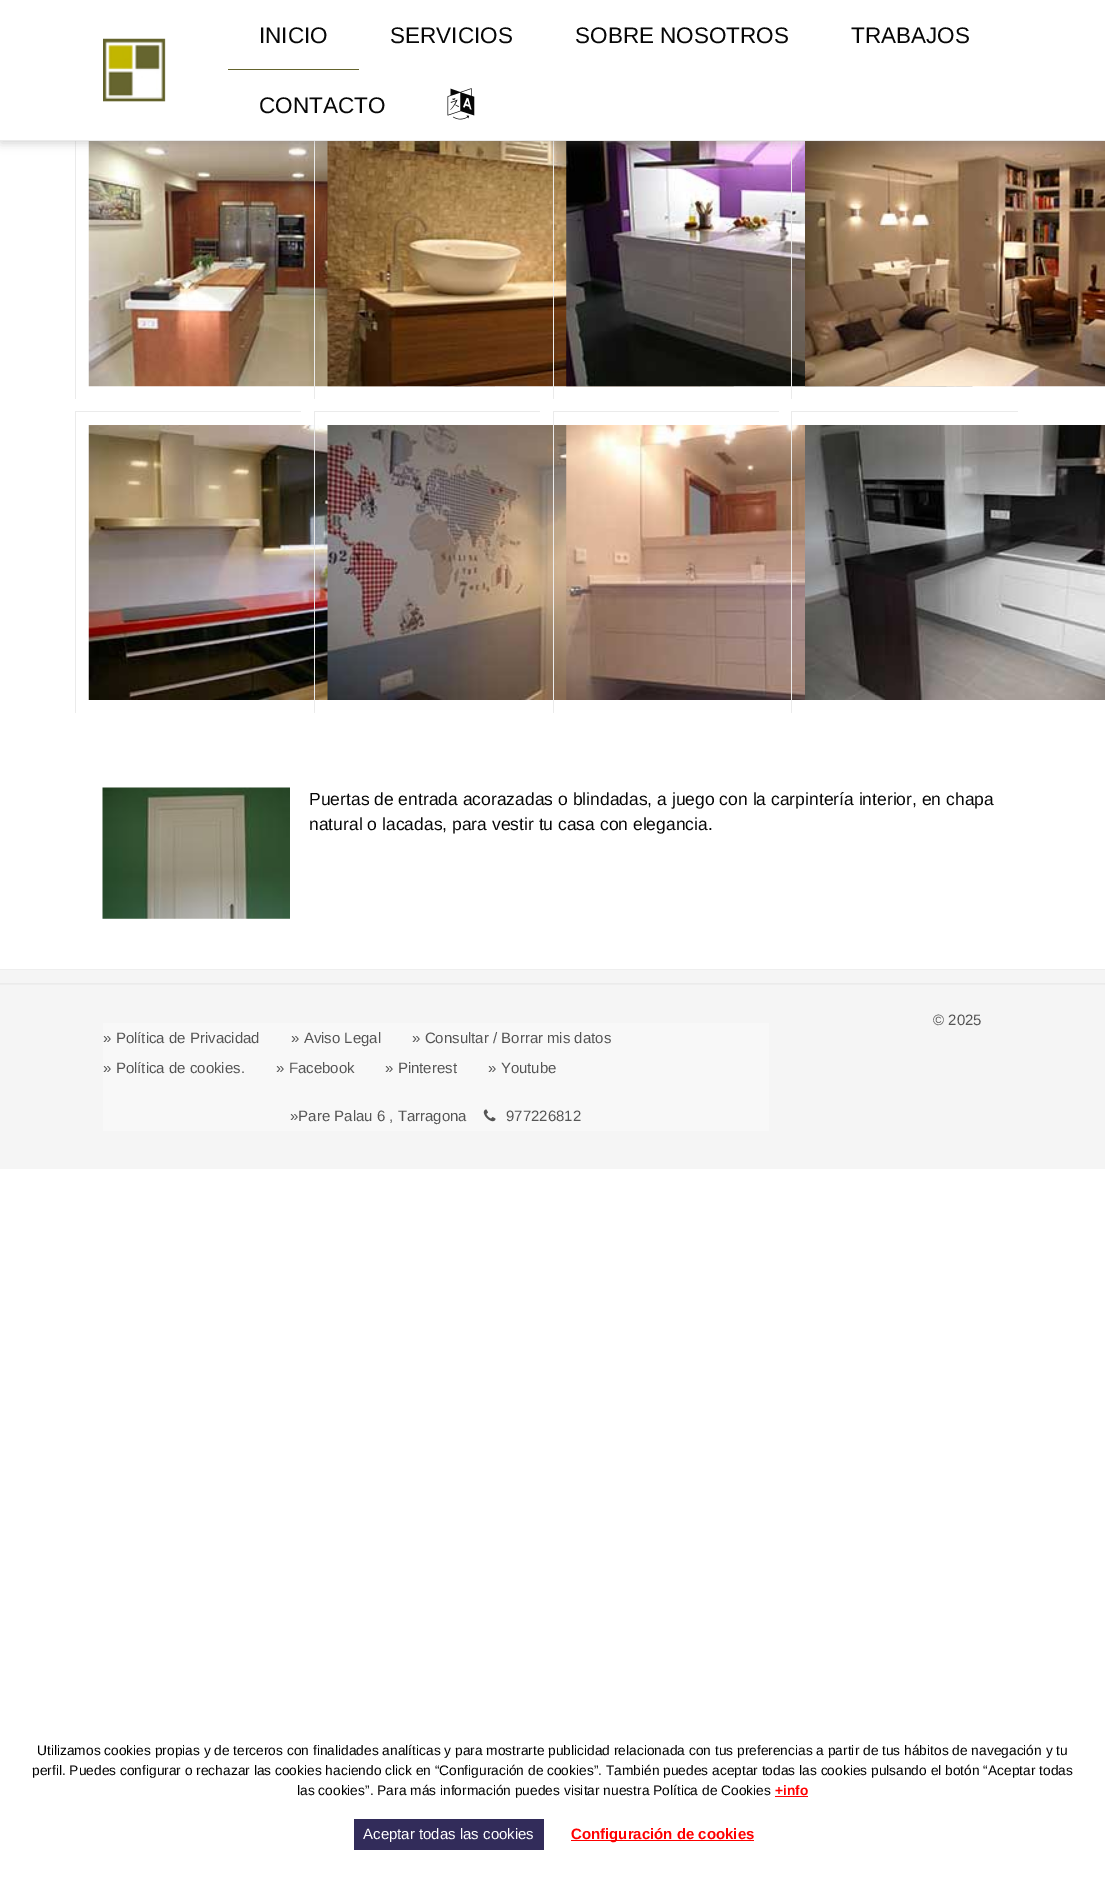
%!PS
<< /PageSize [1105 1880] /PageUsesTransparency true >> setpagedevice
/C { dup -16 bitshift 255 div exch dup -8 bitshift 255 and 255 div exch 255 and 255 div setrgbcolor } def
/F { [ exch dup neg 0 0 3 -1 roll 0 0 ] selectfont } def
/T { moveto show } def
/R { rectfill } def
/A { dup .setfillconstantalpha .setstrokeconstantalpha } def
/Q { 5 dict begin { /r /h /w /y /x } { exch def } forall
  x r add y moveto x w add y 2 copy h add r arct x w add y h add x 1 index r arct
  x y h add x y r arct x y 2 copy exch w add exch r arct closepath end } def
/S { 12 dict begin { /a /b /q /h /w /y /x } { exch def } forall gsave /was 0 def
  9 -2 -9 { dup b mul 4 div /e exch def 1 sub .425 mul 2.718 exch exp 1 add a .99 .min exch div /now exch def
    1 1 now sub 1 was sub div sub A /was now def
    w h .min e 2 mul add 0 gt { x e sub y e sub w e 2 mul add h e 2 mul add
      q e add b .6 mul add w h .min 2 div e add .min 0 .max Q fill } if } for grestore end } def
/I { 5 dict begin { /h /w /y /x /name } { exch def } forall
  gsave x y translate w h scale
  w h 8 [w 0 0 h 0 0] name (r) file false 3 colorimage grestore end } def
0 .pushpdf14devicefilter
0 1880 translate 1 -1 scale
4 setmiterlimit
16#FFFFFF C
0 0 1105 1880 R
16#EBEBEB C
75 141 1 258 R
(3.rgb) 88 141 407 246 I
314 141 1 258 R
(4.rgb) 327 141 407 246 I
553 141 1 258 R
(5.rgb) 566 141 407 246 I
791 141 1 258 R
(6.rgb) 805 141 300 246 I
16#666666 C
1 1 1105 142 0 5 .3 S
16#FFFFFF C
0 0 1105 140 R
16#EBEBEB C
0 140 1105 1 R
(1.rgb) 103 38 63 64 I
16#64632D C
228 69 131 1 R
/LiberationSans-Regular 22.5 F
16#070707 C
(INICIO) 259 43 T
(SERVICIOS) 390 43 T
(SOBRE NOSOTROS) 575 43 T
(TRABAJOS) 851 43 T
(CONTACTO) 259 113 T
(2.rgb) 447 88 28 32 I
16#EBEBEB C
75 411 226 1 R
75 411 1 302 R
(7.rgb) 88 425 240 275 I
314 411 226 1 R
314 411 1 302 R
(8.rgb) 327 425 240 275 I
553 411 226 1 R
553 411 1 302 R
(9.rgb) 566 425 239 275 I
791 411 227 1 R
791 411 1 302 R
(10.rgb) 805 425 300 275 I
(11.rgb) 102 787 188 132 I
/LiberationSans-Regular 17.5 F
16#070707 C
(Puertas de entrada acorazadas o blindadas, a juego con la carpintería interior, en chapa) 309 805 T
(natural o lacadas, para vestir tu casa con elegancia.) 309 830 T
16#F5F5F5 C
0 970 1105 13 R
16#EEEEEE C
0 969 1105 1 R
16#F5F5F5 C
0 985 1105 184 R
16#EBEBEB C
0 983 1105 1 R
16#EEEEEE C
0 984 1105 1 R
/LiberationSans-Regular 15 F
16#555555 C
(© 2025) 933 1025 T
16#F8F8F8 C
103 1023 666 108 R
16#555555 C
(» Política de Privacidad) 103 1043 T
(» Aviso Legal) 291 1043 T
(» Consultar / Borrar mis datos) 412 1043 T
(» Política de cookies.) 103 1073 T
(» Facebook) 276 1073 T
(» Pinterest) 385 1073 T
(» Youtube) 488 1073 T
(»Pare Palau 6 , Tarragona) 290 1121 T
(12.rgb) 483 1109 13 13 I
(977226812) 506 1121 T
/LiberationSans-Regular 13.75 F
16#000000 C
(Utilizamos cookies propias y de terceros con finalidades analíticas y para mostrarte publicidad relacionada con tus preferencias a partir de tus hábitos de navegación y tu) 37 1755 T
(perfil. Puedes configurar o rechazar las cookies haciendo click en “Configuración de cookies”. También puedes aceptar todas las cookies pulsando el botón “Aceptar todas) 32 1775 T
(las cookies”. Para más información puedes visitar nuestra Política de Cookies) 297 1795 T
/LiberationSans-Bold 13.75 F
16#FF0000 C
(+info) 775 1795 T
775 1796 33 1 R
16#322C5A C
354 1819 190 31 R
/LiberationSans-Regular 15 F
16#FFFFFF C
(Aceptar todas las cookies) 363 1839 T
16#FF0000 C
571 1840 183 1 R
/LiberationSans-Bold 15 F
(Configuración de cookies) 571 1839 T
.poppdf14devicefilter showpage
